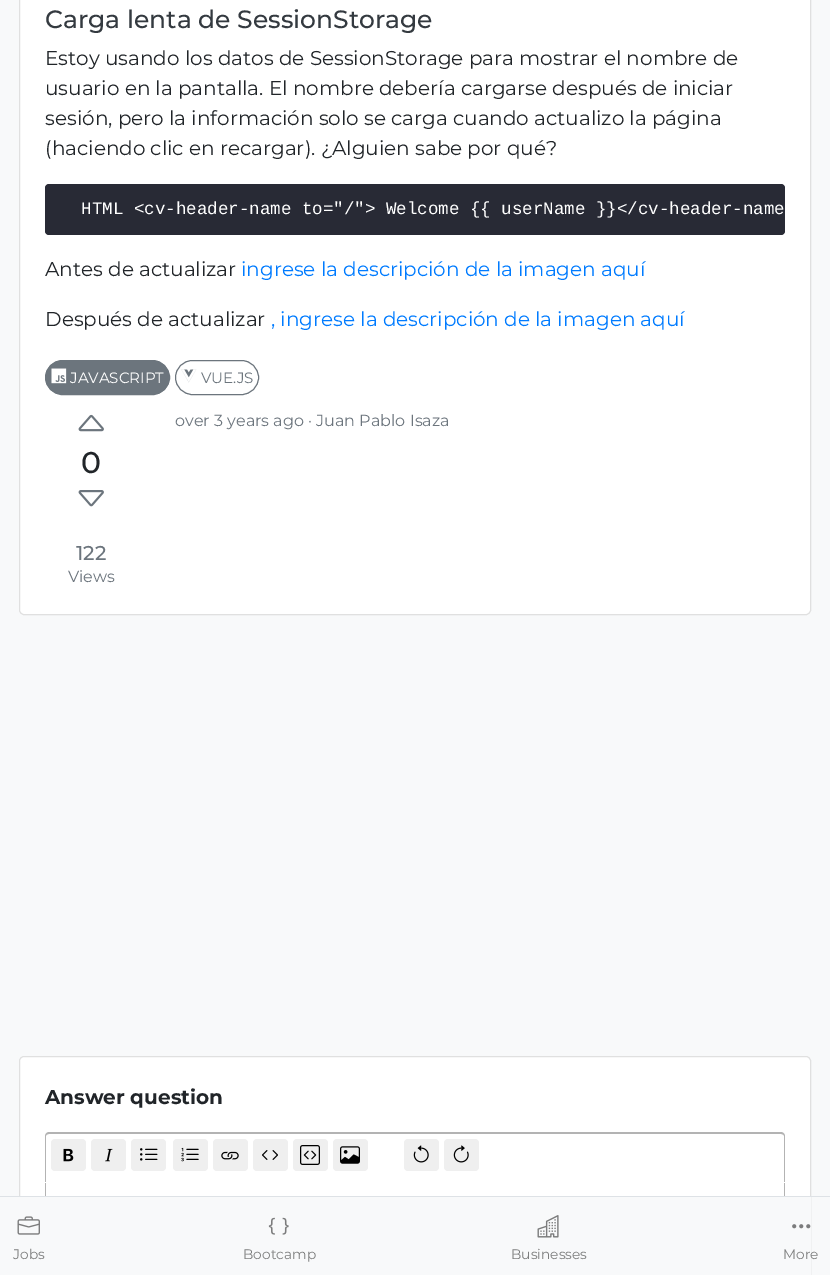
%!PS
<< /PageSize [830 1275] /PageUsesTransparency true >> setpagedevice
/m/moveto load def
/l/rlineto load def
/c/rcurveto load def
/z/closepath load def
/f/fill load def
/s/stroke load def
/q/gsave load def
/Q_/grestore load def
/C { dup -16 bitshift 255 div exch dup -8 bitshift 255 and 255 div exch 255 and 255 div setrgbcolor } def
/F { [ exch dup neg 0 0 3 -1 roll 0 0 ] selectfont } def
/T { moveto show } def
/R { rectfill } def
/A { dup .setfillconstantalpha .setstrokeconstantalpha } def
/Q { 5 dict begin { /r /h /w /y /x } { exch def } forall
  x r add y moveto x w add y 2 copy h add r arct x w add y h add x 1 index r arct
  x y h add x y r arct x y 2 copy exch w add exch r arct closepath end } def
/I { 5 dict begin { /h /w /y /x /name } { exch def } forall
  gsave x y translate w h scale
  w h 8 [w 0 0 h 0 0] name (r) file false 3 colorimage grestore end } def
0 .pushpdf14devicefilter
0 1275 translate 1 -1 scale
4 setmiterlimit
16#F8F9FA C
0 0 830 1275 R
16#FFFFFF C
19 -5 792 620 5 Q f
0.12 A
16#000000 C
19.5 -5.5 791 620 4.5 Q s
/Montserrat-Medium 25 F
1 A
16#343A40 C
(Carga lenta de SessionStorage) 45 28 T
/Montserrat-Regular 20 F
16#212529 C
(Estoy usando los datos de SessionStorage para mostrar el nombre de) 45 65 T
(usuario en la pantalla. El nombre debería cargarse después de iniciar) 45 95 T
(sesión, pero la información solo se carga cuando actualizo la página) 45 125 T
(\(haciendo clic en recargar\). ¿Alguien sabe por qué?) 45 155 T
16#282A35 C
45 184 740 51 4 Q f
/LiberationMono-Regular 17.5 F
16#FFFFFF C
(HTML <cv-header-name to="/"> Welcome {{ userName }}</cv-header-name) 81 214 T
/Montserrat-Regular 20 F
16#212529 C
(Antes de actualizar) 45 276 T
16#007BFF C
(ingrese la descripción de la imagen aquí) 241 276 T
16#212529 C
(Después de actualizar) 45 326 T
16#007BFF C
(, ingrese la descripción de la imagen aquí) 271 326 T
16#6C757D C
45.5 360.5 124 34 17 Q q f Q_
s
(1.rgb) 51 368 16 16 I
/Montserrat-Regular 15 F
16#FFFFFF C
(JAVASCRIPT) 70 383 T
16#6C757D C
175.5 360.5 83 34 17 Q s
(2.rgb) 181 369 16 14 I
(VUE.JS) 201 383 T
/Montserrat-Regular 16 F
(over 3 years ago · Juan Pablo Isaza) 175 426 T
(3.rgb) 78 414 26 18 I
/Montserrat-Medium 30 F
16#212529 C
(0) 81 473 T
(4.rgb) 78 490 26 17 I
/Montserrat-Medium 20 F
16#6C757D C
(122) 76 560 T
/Montserrat-Regular 16 F
(Views) 68 582 T
16#FFFFFF C
19 1056 792 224 5 Q f
0.12 A
16#000000 C
19.5 1056.5 791 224 4.5 Q s
/Montserrat-Bold 20 F
1 A
16#212529 C
(Answer question) 45 1104 T
16#B3B3B3 C
45 1182 m 740 0 l 0 60 l 0 3 -2 4 -4 4 c -732 0 l -2 0 -4 -1 -4 -4 c z 46 1182 m 738 0 l 0 60 l 0 2 -1 3 -3 3 c -732 0 l -2 0 -3 -1 -3 -3 c z eofill
16#FFFFFF C
49 1133 m 732 0 l 2 0 4 2 4 4 c 0 46 l -740 0 l 0 -46 l 0 -2 2 -4 4 -4 c z f
16#B3B3B3 C
49 1132 m 732 0 l 2 0 4 2 4 4 c 0 46 l -740 0 l 0 -46 l 0 -2 2 -4 4 -4 c z 49 1134 m 732 0 l 2 0 3 1 3 2 c 0 46 l -738 0 l 0 -46 l 0 -1 1 -2 3 -2 c z eofill
16#EFEFEF C
51 1139 35 32 4 Q f
(5.rgb) 63 1148 11 14 I
91 1139 35 32 4 Q f
(6.rgb) 105 1148 8 14 I
131 1139 35 32 4 Q f
(7.rgb) 140 1148 18 13 I
173 1139 35 32 4 Q f
(8.rgb) 181 1147 18 15 I
213 1139 35 32 4 Q f
(9.rgb) 221 1151 18 9 I
253 1139 35 32 4 Q f
(10.rgb) 262 1150 16 10 I
293 1139 35 32 4 Q f
(11.rgb) 300 1145 20 20 I
333 1139 35 32 4 Q f
(12.rgb) 340 1146 20 18 I
404 1139 35 32 4 Q f
(13.rgb) 413 1145 16 18 I
444 1139 35 32 4 Q f
(14.rgb) 453 1145 16 18 I
16#F8F9FA C
19 1197 792 78 R
16#DEE2E6 C
0 1196 830 1 R
(15.rgb) 17 1216 23 19 I
/Montserrat-Regular 13.75 F
16#7C7D7D C
(Jobs) 13 1259 T
(16.rgb) 268 1217 21 18 I
(Bootcamp) 243 1259 T
(17.rgb) 537 1215 22 23 I
(Businesses) 511 1259 T
(18.rgb) 792 1224 19 5 I
(More) 783 1259 T
.poppdf14devicefilter showpage
